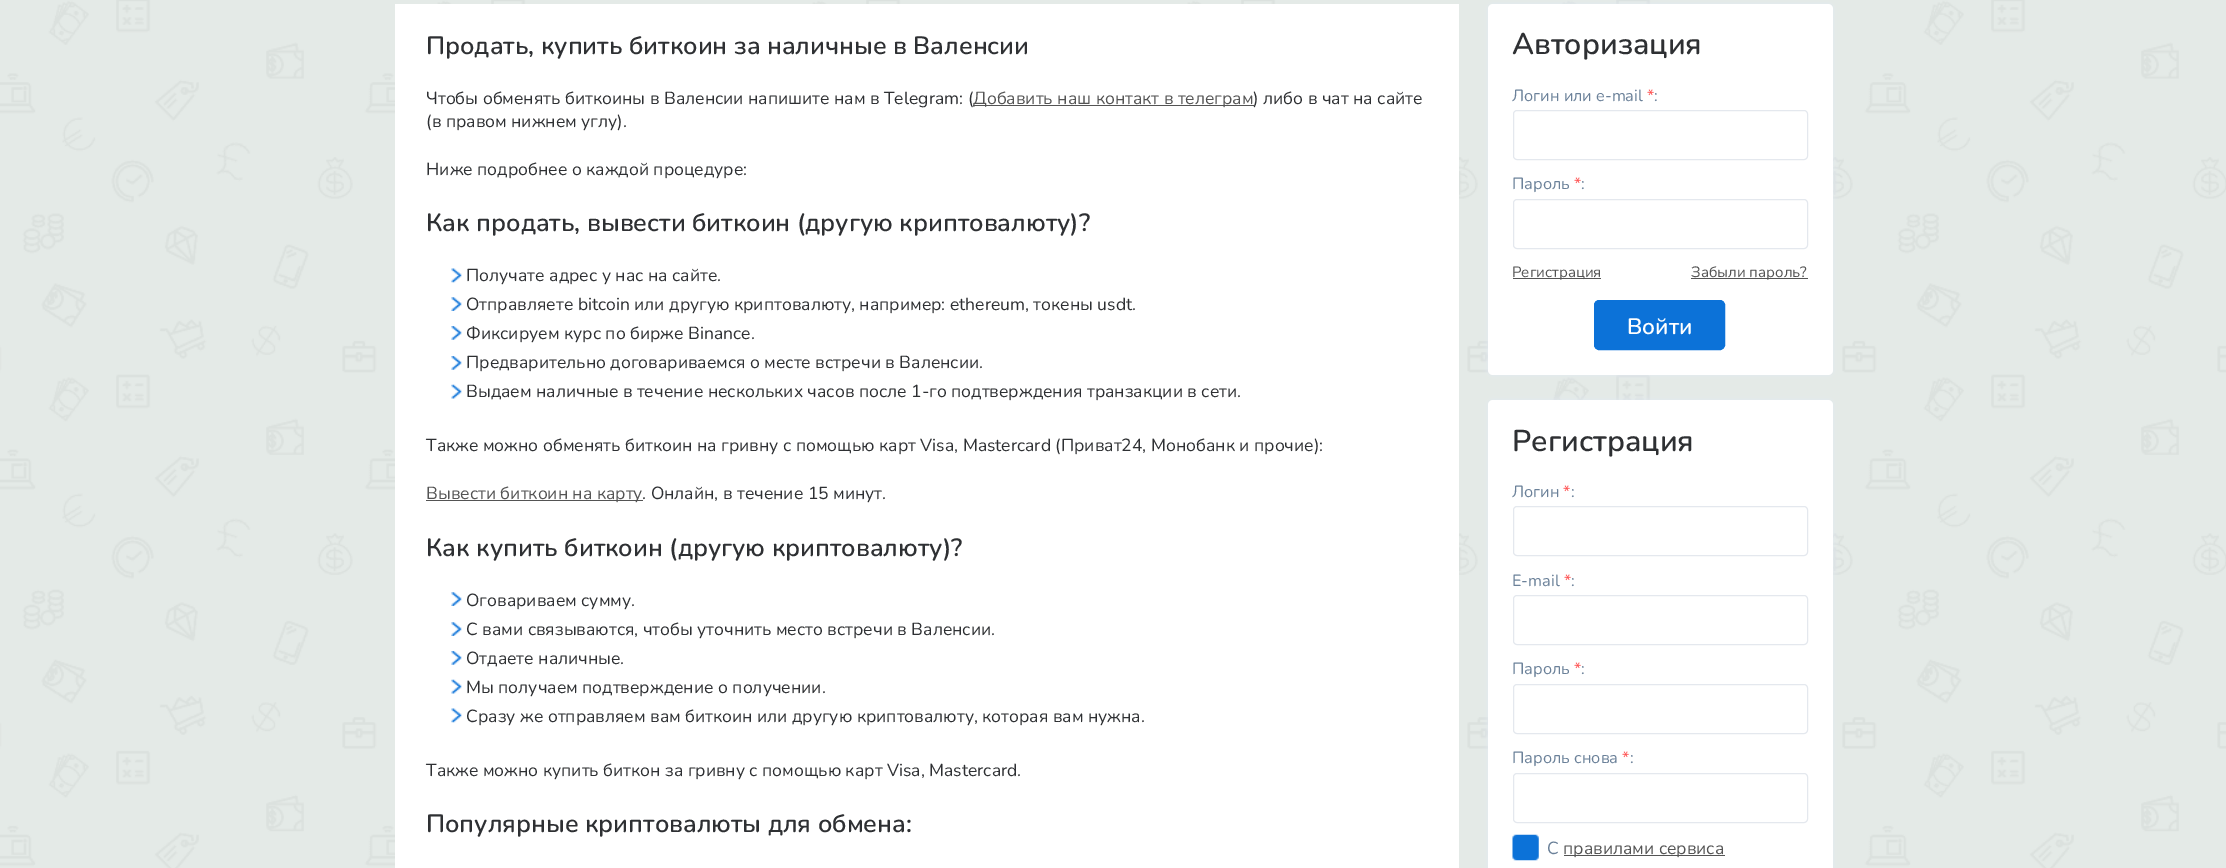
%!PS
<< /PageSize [2226 868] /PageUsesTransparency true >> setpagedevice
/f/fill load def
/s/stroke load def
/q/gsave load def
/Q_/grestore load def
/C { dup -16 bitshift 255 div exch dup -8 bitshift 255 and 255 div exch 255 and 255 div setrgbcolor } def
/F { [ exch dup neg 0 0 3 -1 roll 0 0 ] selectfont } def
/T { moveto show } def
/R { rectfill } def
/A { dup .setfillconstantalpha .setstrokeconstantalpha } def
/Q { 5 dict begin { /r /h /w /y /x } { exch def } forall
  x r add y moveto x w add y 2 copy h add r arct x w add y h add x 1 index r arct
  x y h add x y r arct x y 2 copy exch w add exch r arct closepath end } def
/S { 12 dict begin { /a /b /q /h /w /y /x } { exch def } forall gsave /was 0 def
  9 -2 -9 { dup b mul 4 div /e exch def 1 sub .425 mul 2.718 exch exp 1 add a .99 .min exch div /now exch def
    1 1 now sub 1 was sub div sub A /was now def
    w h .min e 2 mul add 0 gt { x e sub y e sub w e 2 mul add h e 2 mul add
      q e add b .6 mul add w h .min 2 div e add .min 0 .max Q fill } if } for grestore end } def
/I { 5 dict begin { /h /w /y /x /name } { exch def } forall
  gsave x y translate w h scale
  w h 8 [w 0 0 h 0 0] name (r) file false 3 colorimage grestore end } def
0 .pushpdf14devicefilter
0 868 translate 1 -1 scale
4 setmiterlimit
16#FFFFFF C
0 0 2226 868 R
(1.rgb) 0 0 2226 868 I
395 4 1064 864 R
/Nunito-SemiBold 25 F
16#2E3033 C
(Продать, купить биткоин за наличные в Валенсии) 426 54 T
/Nunito-Regular 17.5 F
(Чтобы обменять биткоины в Валенсии напишите нам в Telegram: \() 426 104 T
16#545454 C
973 105 281 1 R
(Добавить наш контакт в телеграм) 973 104 T
16#2E3033 C
(\) либо в чат на сайте) 1253 104 T
(\(в правом нижнем углу\).) 426 127 T
(Ниже подробнее о каждой процедуре:) 426 175 T
/Nunito-SemiBold 25 F
(Как продать, вывести биткоин \(другую криптовалюту\)?) 426 231 T
(2.rgb) 451 268 11 15 I
/Nunito-Regular 17.5 F
(Получате адрес у нас на сайте.) 466 281 T
(3.rgb) 451 297 11 14 I
(Отправляете bitcoin или другую криптовалюту, например: ethereum, токены usdt.) 466 310 T
(4.rgb) 451 326 11 14 I
(Фиксируем курс по бирже Binance.) 466 339 T
(4.rgb) 451 356 11 14 I
(Предварительно договариваемся о месте встречи в Валенсии.) 466 368 T
(5.rgb) 451 384 11 15 I
(Выдаем наличные в течение нескольких часов после 1-го подтверждения транзакции в сети.) 466 397 T
(Также можно обменять биткоин на гривну с помощью карт Visa, Mastercard \(Приват24, Монобанк и прочие\):) 426 451 T
16#545454 C
426 500 217 1 R
(Вывести биткоин на карту) 426 499 T
16#2E3033 C
(. Онлайн, в течение 15 минут.) 642 499 T
/Nunito-SemiBold 25 F
(Как купить биткоин \(другую криптовалюту\)?) 426 556 T
(3.rgb) 451 592 11 14 I
/Nunito-Regular 17.5 F
(Оговариваем сумму.) 466 606 T
(3.rgb) 451 622 11 14 I
(С вами связываются, чтобы уточнить место встречи в Валенсии.) 466 635 T
(4.rgb) 451 651 11 14 I
(Отдаете наличные.) 466 664 T
(5.rgb) 451 679 11 15 I
(Мы получаем подтверждение о получении.) 466 693 T
(2.rgb) 451 708 11 15 I
(Сразу же отправляем вам биткоин или другую криптовалюту, которая вам нужна.) 466 722 T
(Также можно купить биткон за гривну с помощью карт Visa, Mastercard.) 426 776 T
/Nunito-SemiBold 25 F
(Популярные криптовалюты для обмена:) 426 832 T
16#E1E9F2 C
1488 4 345 371 5 3 1 S
16#FFFFFF C
1488 4 345 371 5 Q f
/Nunito-SemiBold 30 F
16#2E3033 C
(Авторизация) 1512 54 T
/Nunito-Regular 16.25 F
16#6B8199 C
(Логин или e-mail) 1512 101 T
16#FF4E4E C
(*) 1647 101 T
16#6B8199 C
(:) 1654 101 T
16#E4E8EE C
1513.5 110.5 294 49 3.5 Q s
16#6B8199 C
(Пароль) 1512 189 T
16#FF4E4E C
(*) 1574 189 T
16#6B8199 C
(:) 1581 189 T
16#E4E8EE C
1513.5 199.5 294 49 3.5 Q s
16#545454 C
1513 278 88 1 R
/Nunito-Regular 15 F
(Регистрация) 1512 277 T
1691 278 117 1 R
(Забыли пароль?) 1691 277 T
16#0C72D8 C
1594.5 300.5 130 49 4.5 Q q f Q_
s
/Nunito-SemiBold 22.5 F
16#FFFFFF C
(Войти) 1627 334 T
16#E1E9F2 C
1488 400 345 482 5 3 1 S
16#FFFFFF C
1488 400 345 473 5 Q f
/Nunito-SemiBold 30 F
16#2E3033 C
(Регистрация) 1512 451 T
/Nunito-Regular 16.25 F
16#6B8199 C
(Логин) 1512 497 T
16#FF4E4E C
(*) 1563 497 T
16#6B8199 C
(:) 1571 497 T
16#E4E8EE C
1513.5 506.5 294 49 3.5 Q s
16#6B8199 C
(E-mail) 1512 586 T
16#FF4E4E C
(*) 1564 586 T
16#6B8199 C
(:) 1571 586 T
16#E4E8EE C
1513.5 595.5 294 49 3.5 Q s
16#6B8199 C
(Пароль) 1512 674 T
16#FF4E4E C
(*) 1574 674 T
16#6B8199 C
(:) 1581 674 T
16#E4E8EE C
1513.5 684.5 294 49 3.5 Q s
16#6B8199 C
(Пароль снова) 1512 763 T
16#FF4E4E C
(*) 1622 763 T
16#6B8199 C
(:) 1630 763 T
16#E4E8EE C
1513.5 773.5 294 49 3.5 Q s
(6.rgb) 1512 834 27 27 I
/Nunito-Regular 17.5 F
16#6B8199 C
(С) 1547 854 T
16#545454 C
1564 855 161 1 R
(правилами сервиса) 1563 854 T
.poppdf14devicefilter showpage
